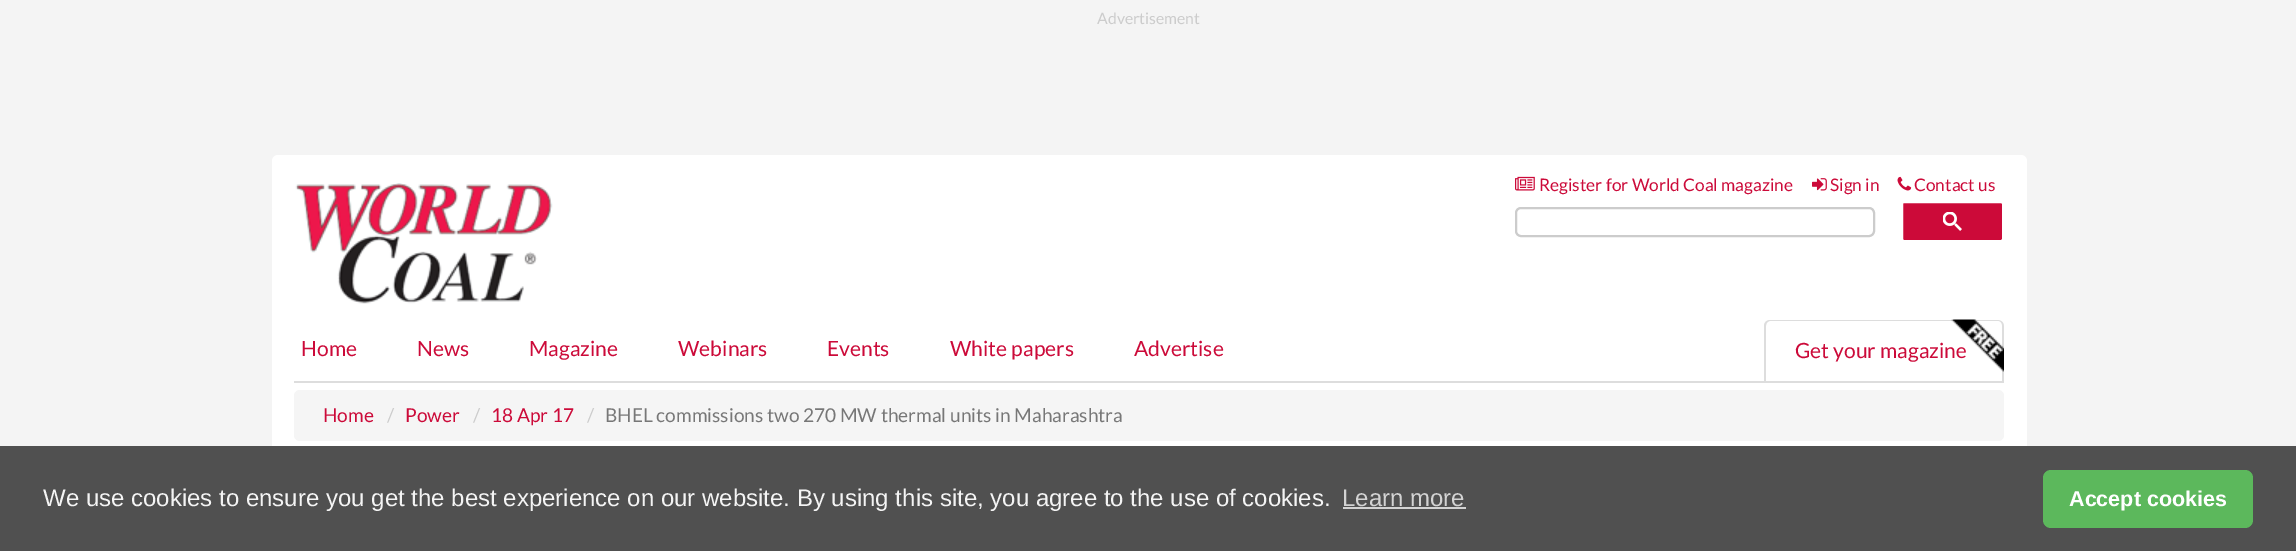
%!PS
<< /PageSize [2296 551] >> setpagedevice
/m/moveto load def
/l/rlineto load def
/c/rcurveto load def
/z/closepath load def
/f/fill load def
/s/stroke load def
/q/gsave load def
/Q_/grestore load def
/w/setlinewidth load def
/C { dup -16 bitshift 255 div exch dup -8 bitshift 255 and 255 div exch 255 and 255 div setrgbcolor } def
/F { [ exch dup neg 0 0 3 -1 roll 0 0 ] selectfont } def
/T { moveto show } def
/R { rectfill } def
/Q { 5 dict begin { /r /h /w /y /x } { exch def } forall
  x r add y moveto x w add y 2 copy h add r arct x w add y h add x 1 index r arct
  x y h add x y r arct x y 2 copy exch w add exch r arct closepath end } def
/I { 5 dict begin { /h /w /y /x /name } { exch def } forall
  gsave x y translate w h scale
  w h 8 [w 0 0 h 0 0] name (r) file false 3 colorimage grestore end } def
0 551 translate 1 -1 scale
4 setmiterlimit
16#F4F4F4 C
0 0 2296 551 R
/Lato-Regular 15.75 F
16#CCCCCC C
(Advertisement) 1097 24 T
16#FFFFFF C
272 155 1755 58 6 Q f
(1.rgb) 1515 176 20 15 I
/Lato-Regular 17.3 F
16#CC0A39 C
(Register for World Coal magazine) 1539 191 T
(2.rgb) 1812 178 15 13 I
(Sign in) 1830 191 T
(3.rgb) 1897 176 15 15 I
(Contact us) 1914 191 T
16#FFFFFF C
272 209 1755 111 R
(4.rgb) 295 183 258 121 I
16#CCCCCC C
2 w
1516 208 358 28 5 Q s
16#CC0A39 C
1902 202 101 39 2 Q q f Q_
16#FFFFFF C
s
(5.rgb) 1943 212 19 19 I
272 320 1755 126 R
16#DDDDDD C
294 381 1710 2 R
/Lato-Regular 21 F
16#CC0A39 C
(Home) 301 356 T
(News) 417 356 T
(Magazine) 529 356 T
(Webinars) 678 356 T
(Events) 827 356 T
(White papers) 950 356 T
(Advertise) 1134 356 T
16#DDDDDD C
1770 320 m 228 0 l 3 0 6 2 6 6 c 0 55 l -240 0 l 0 -55 l 0 -4 3 -6 6 -6 c z 1770 321 m 228 0 l 2 0 4 2 4 5 c 0 55 l -236 0 l 0 -55 l 0 -3 2 -5 4 -5 c z eofill
16#CC0A39 C
(Get your magazine) 1795 358 T
(6.rgb) 1951 319 53 53 I
16#F5F5F5 C
294 390 1710 51 6 Q f
/Lato-Regular 19.1 F
16#CC0A39 C
(Home) 323 422 T
16#CCCCCC C
(/) 387 422 T
16#CC0A39 C
(Power) 405 422 T
16#CCCCCC C
(/) 473 422 T
16#CC0A39 C
(18 Apr 17) 491 422 T
16#CCCCCC C
(/) 587 422 T
16#777777 C
(BHEL commissions two 270 MW thermal units in Maharashtra) 605 422 T
16#505050 C
0 446 2296 105 R
/LiberationSans-Regular 24 F
16#F4F4F4 C
(We use cookies to ensure you get the best experience on our website. By using this site, you agree to the use of cookies.) 43 506 T
16#D3D3D3 C
(Learn more) 1342 506 T
1343 507 123 2 R
16#5CB85C C
2043 470 210 58 8 Q f
/LiberationSans-Bold 21.5 F
16#FFFFFF C
(Accept cookies) 2069 506 T
showpage
